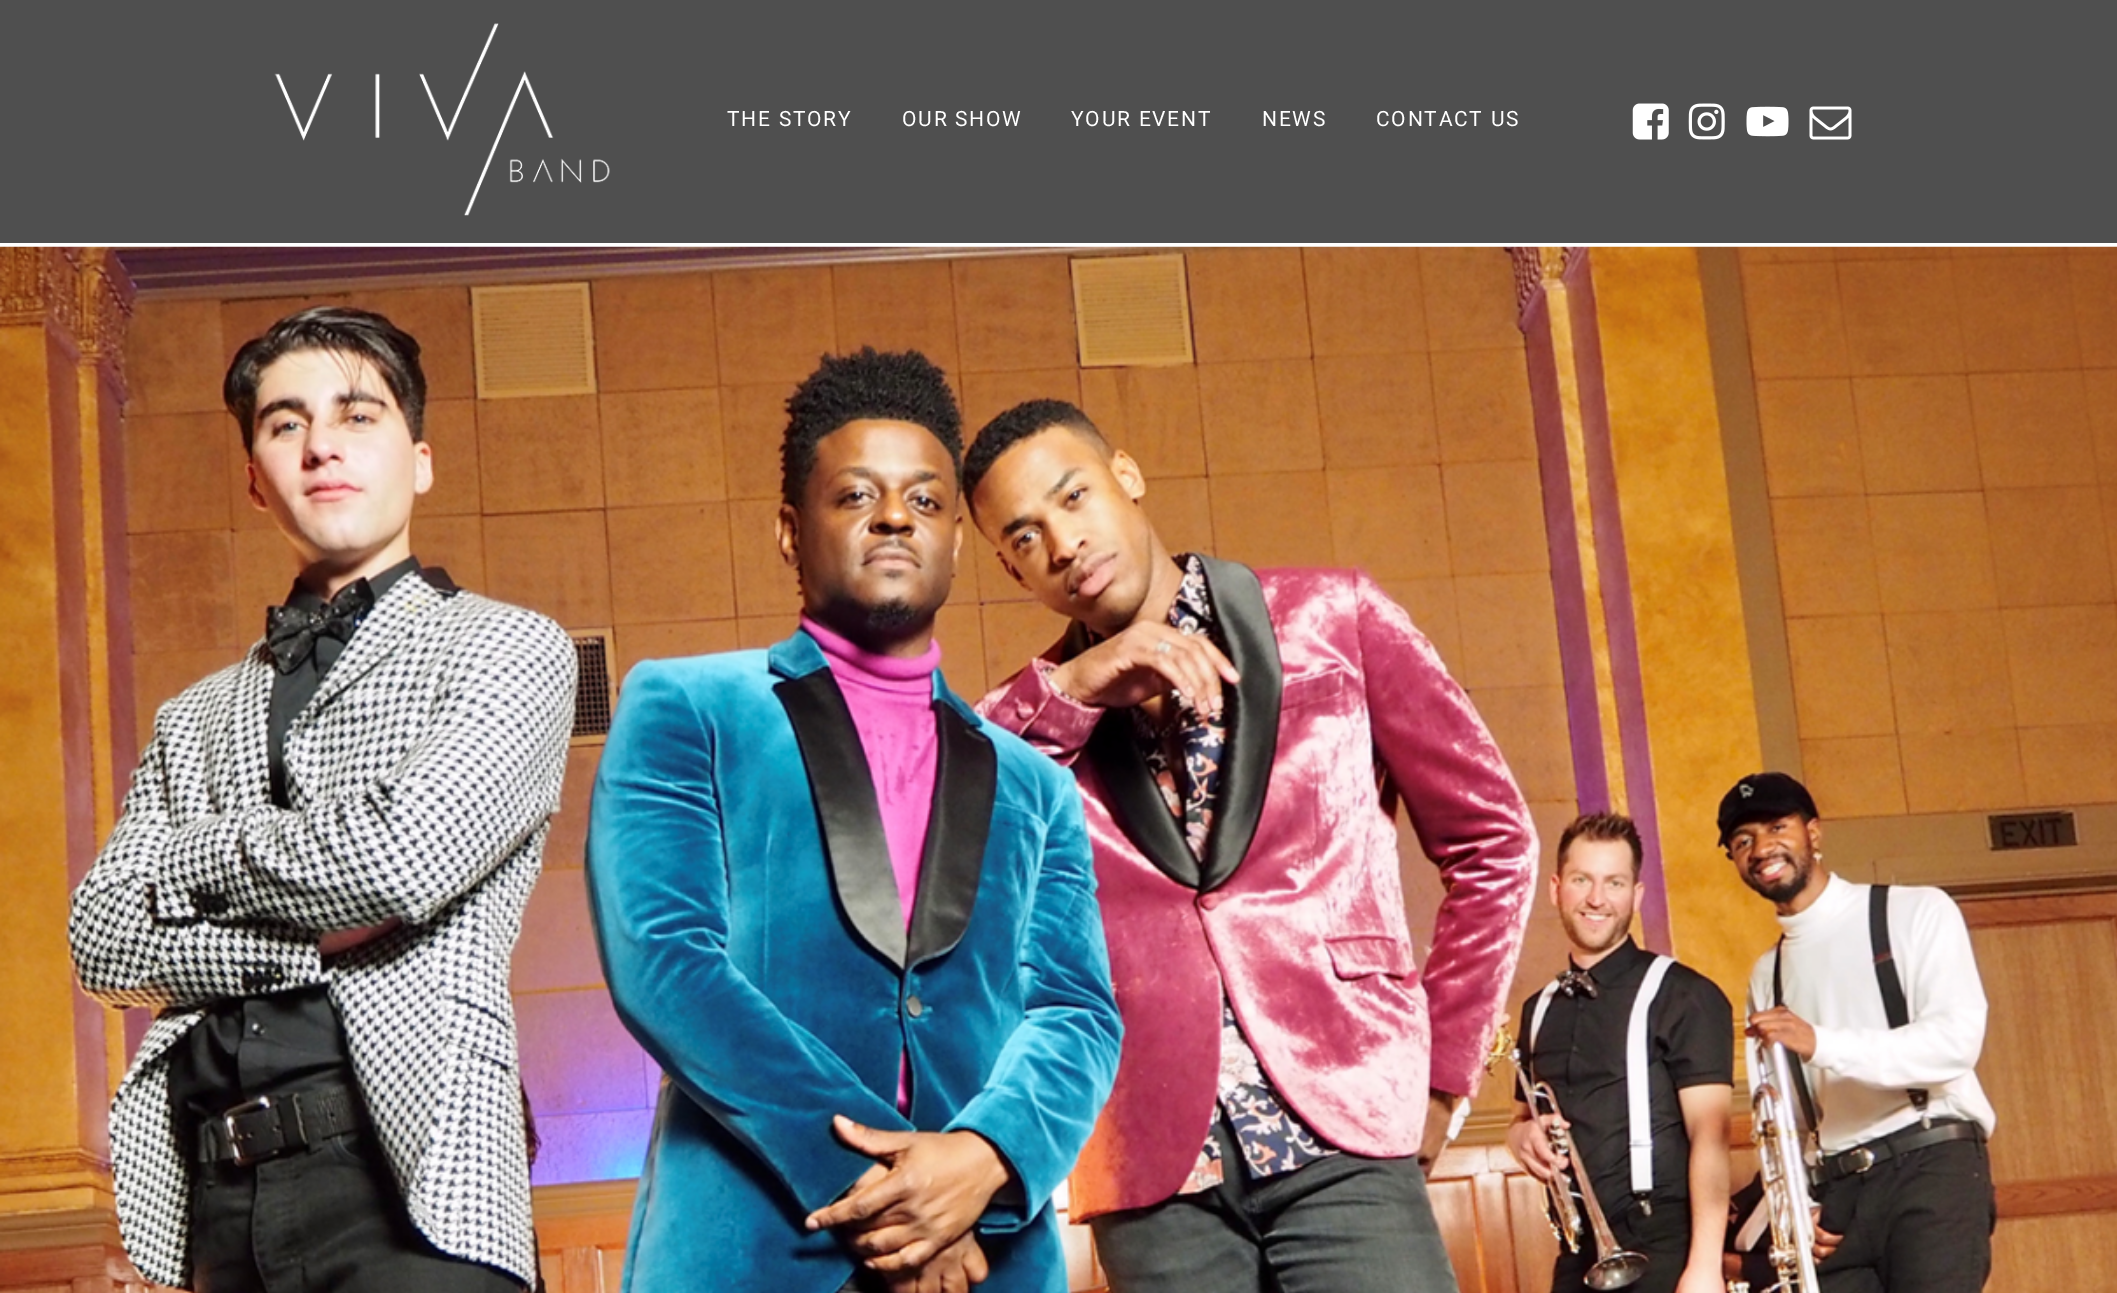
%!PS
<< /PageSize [2117 1293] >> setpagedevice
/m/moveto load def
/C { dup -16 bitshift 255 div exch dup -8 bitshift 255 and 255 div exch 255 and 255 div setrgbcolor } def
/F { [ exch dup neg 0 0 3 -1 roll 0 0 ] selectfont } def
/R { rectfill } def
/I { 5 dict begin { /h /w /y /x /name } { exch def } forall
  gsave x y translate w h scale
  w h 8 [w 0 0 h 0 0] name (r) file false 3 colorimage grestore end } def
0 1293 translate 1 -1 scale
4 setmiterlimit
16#FFFFFF C
0 0 2117 1293 R
16#4F4F4F C
0 0 2117 243 R
(1.rgb) 274 23 336 193 I
/Roboto-Regular 21 F
16#FFFFFF C
727 126 m 1.75 0 (THE STORY) ashow
902 126 m 1.75 0 (OUR SHOW) ashow
1071 126 m 1.75 0 (YOUR EVENT) ashow
1262 126 m 1.75 0 (NEWS) ashow
1376 126 m 1.75 0 (CONTACT US) ashow
(2.rgb) 1632 103 37 37 I
(3.rgb) 1688 103 37 37 I
(4.rgb) 1746 106 43 31 I
(5.rgb) 1809 106 43 34 I
(6.rgb) 0 246 2117 1047 I
showpage
